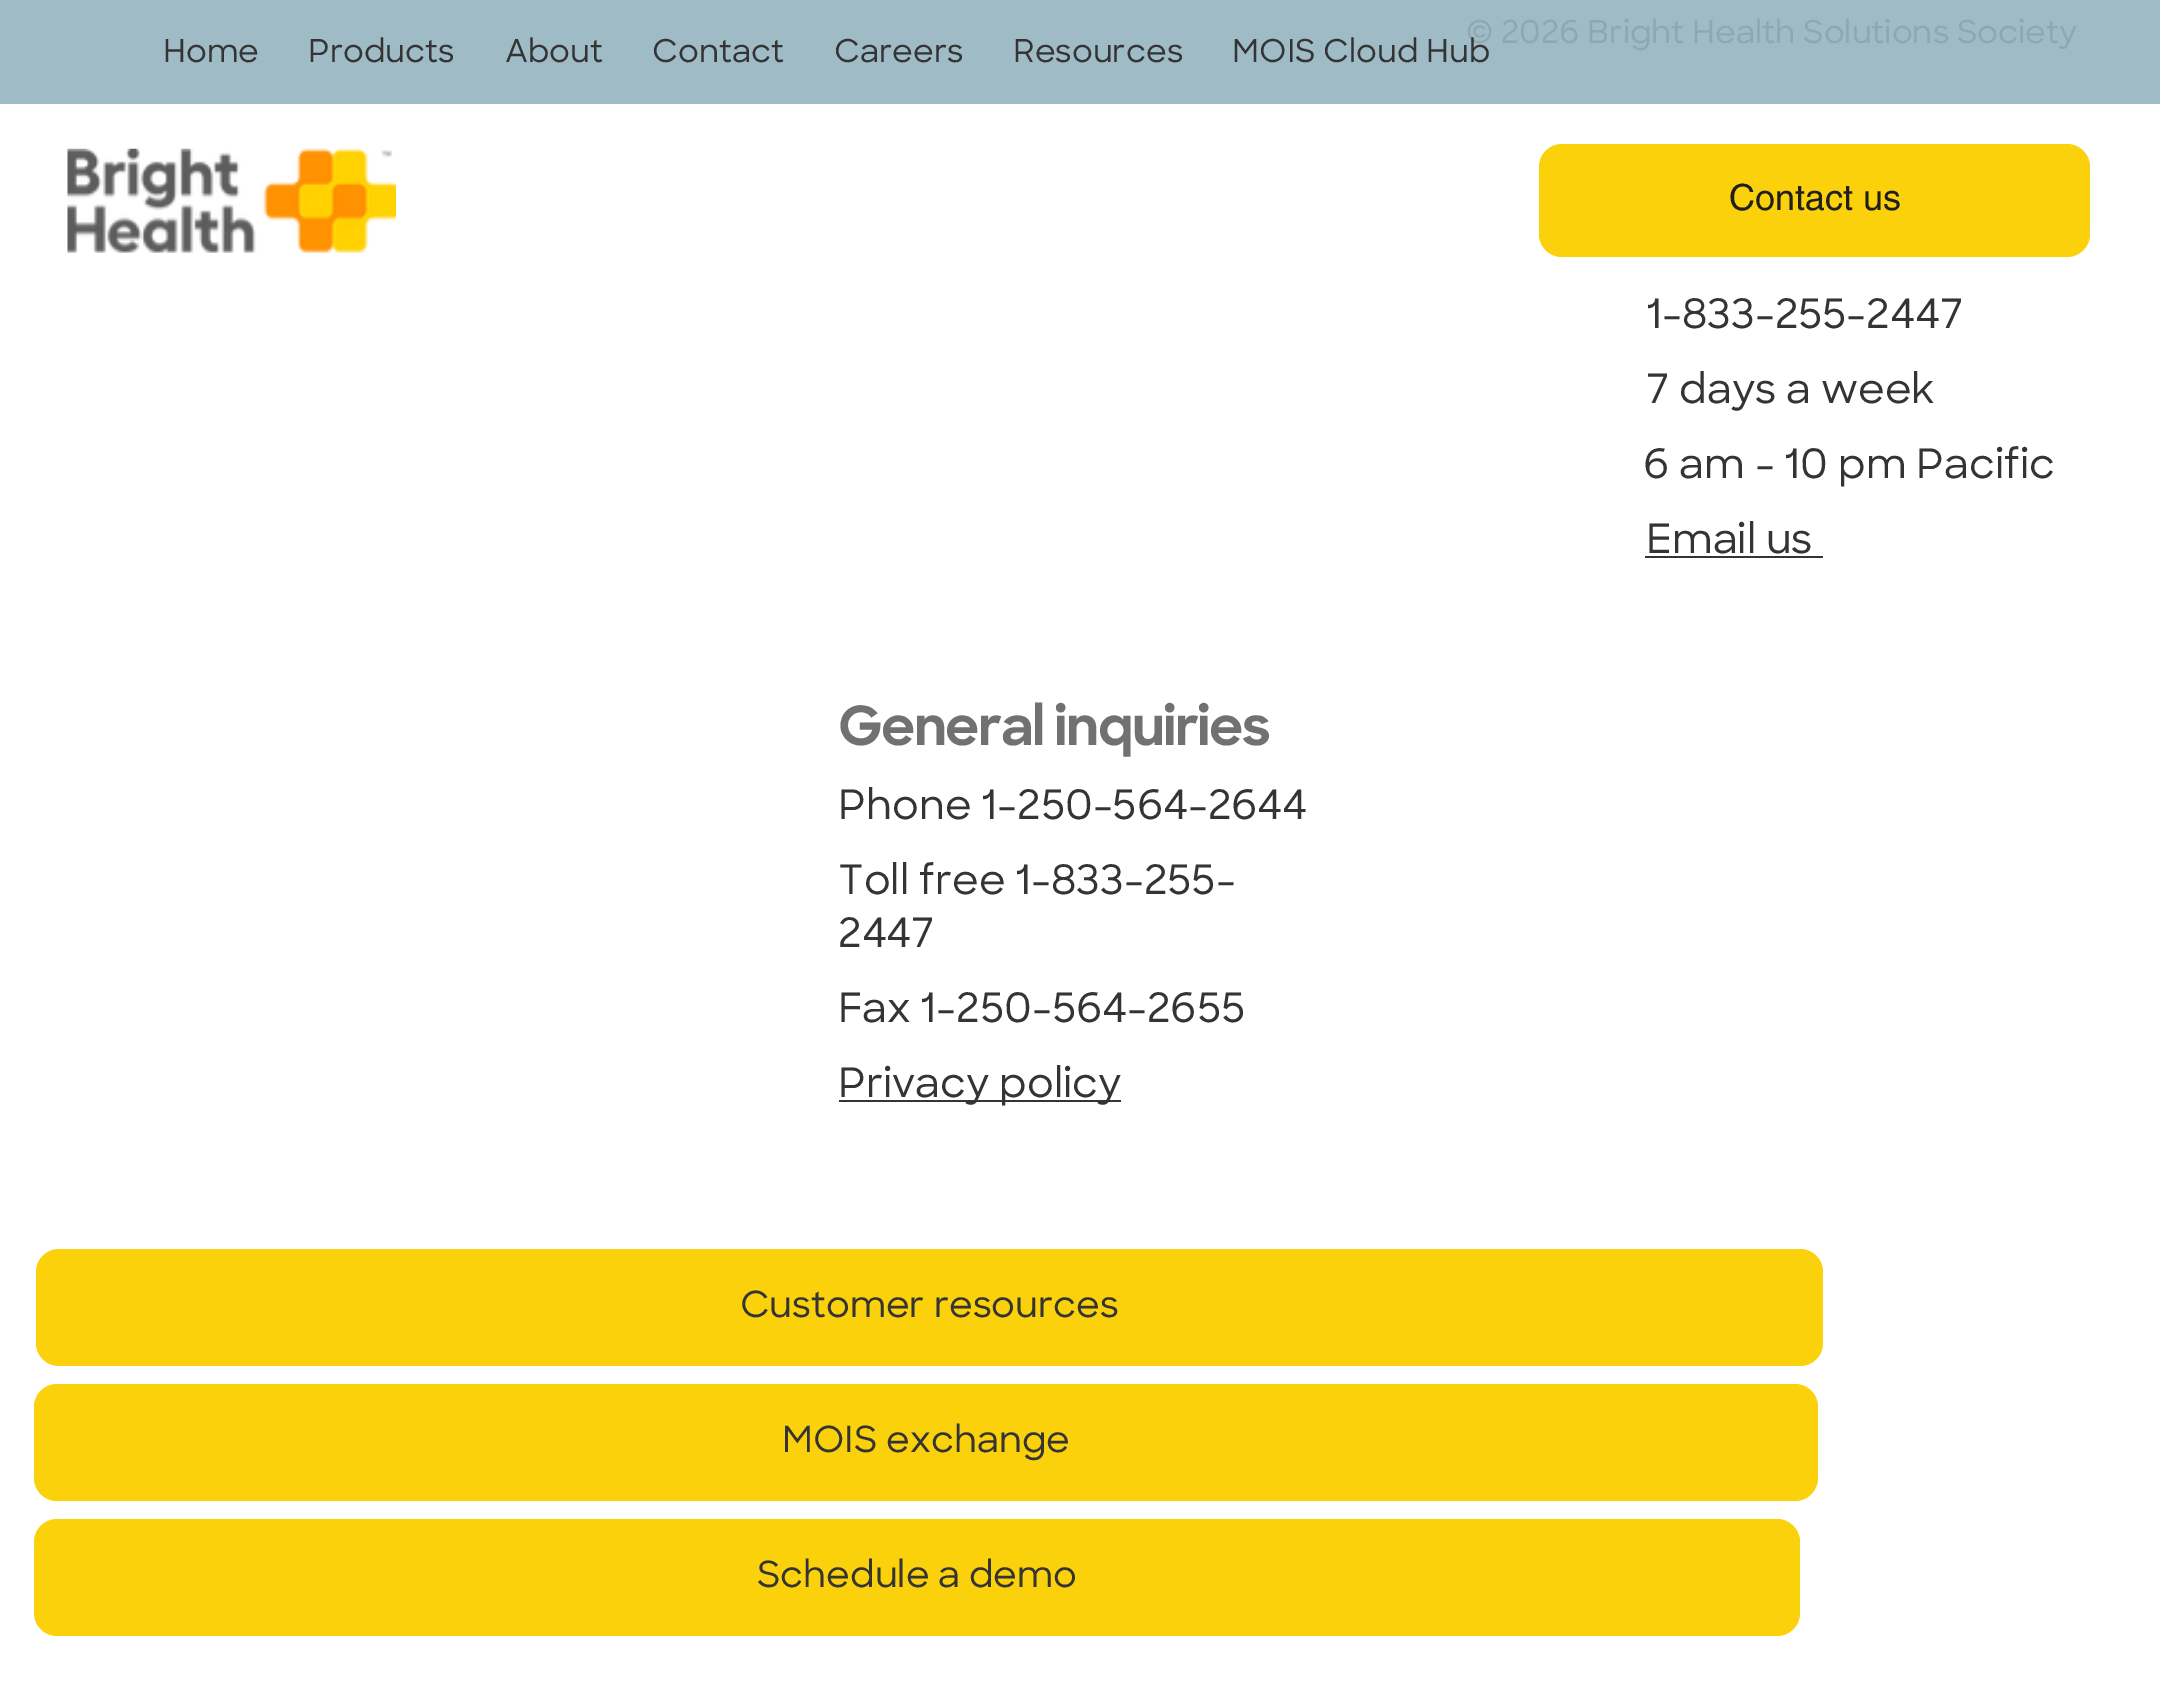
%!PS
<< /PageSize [2160 1702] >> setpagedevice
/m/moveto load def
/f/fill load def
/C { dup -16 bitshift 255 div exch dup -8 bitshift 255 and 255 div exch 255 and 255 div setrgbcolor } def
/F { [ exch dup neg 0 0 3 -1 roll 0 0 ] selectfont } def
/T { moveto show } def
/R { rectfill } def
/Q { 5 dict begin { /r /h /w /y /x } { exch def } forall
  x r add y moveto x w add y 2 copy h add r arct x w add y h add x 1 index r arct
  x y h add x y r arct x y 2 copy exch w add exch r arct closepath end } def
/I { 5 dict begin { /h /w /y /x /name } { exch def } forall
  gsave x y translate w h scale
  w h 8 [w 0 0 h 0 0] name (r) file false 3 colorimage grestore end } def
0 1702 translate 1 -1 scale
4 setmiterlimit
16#FFFFFF C
0 0 2160 1702 R
16#9FBBC5 C
0 0 2160 104 R
/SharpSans-Medium 31.5 F
16#8DA8B2 C
(© 2026 Bright Health Solutions Society) 1466 43 T
/SharpSans-Medium 40.5 F
16#343434 C
(1-833-255-2447) 1646 328 T
(7 days a week) 1646 403 T
(6 am - 10 pm Pacific) 1643 478 T
(Email us) 1646 553 T
1645 556 178 2 R
/SharpSans-Bold 54 F
16#717171 C
838 745 m -1.6 0 (General inquiries) ashow
/SharpSans-Medium 40.5 F
16#343434 C
(Phone 1-250-564-2644) 838 819 T
(Toll free 1-833-255-) 838 894 T
(2447) 838 947 T
(Fax 1-250-564-2655) 838 1022 T
839 1100 282 2 R
(Privacy policy) 838 1097 T
16#FBD10C C
36 1249 1787 117 23 Q f
/SharpSans-Medium 36 F
16#343434 C
(Customer resources) 740 1317 T
16#FBD10C C
34 1384 1784 117 23 Q f
16#343434 C
(MOIS exchange) 782 1452 T
16#FBD10C C
34 1519 1766 117 23 Q f
16#343434 C
(Schedule a demo) 757 1587 T
/SharpSans-Medium 31.5 F
(Home) 163 62 T
(Products) 308 62 T
(About) 505 62 T
(Contact) 652 62 T
(Careers) 834 62 T
(Resources) 1013 62 T
(MOIS Cloud Hub) 1232 62 T
(1.rgb) 67 148 329 105 I
16#FBD10C C
1539 144 551 113 23 Q f
/helvetica-Regular 36 F
16#201F1E C
(Contact us) 1729 210 T
showpage
